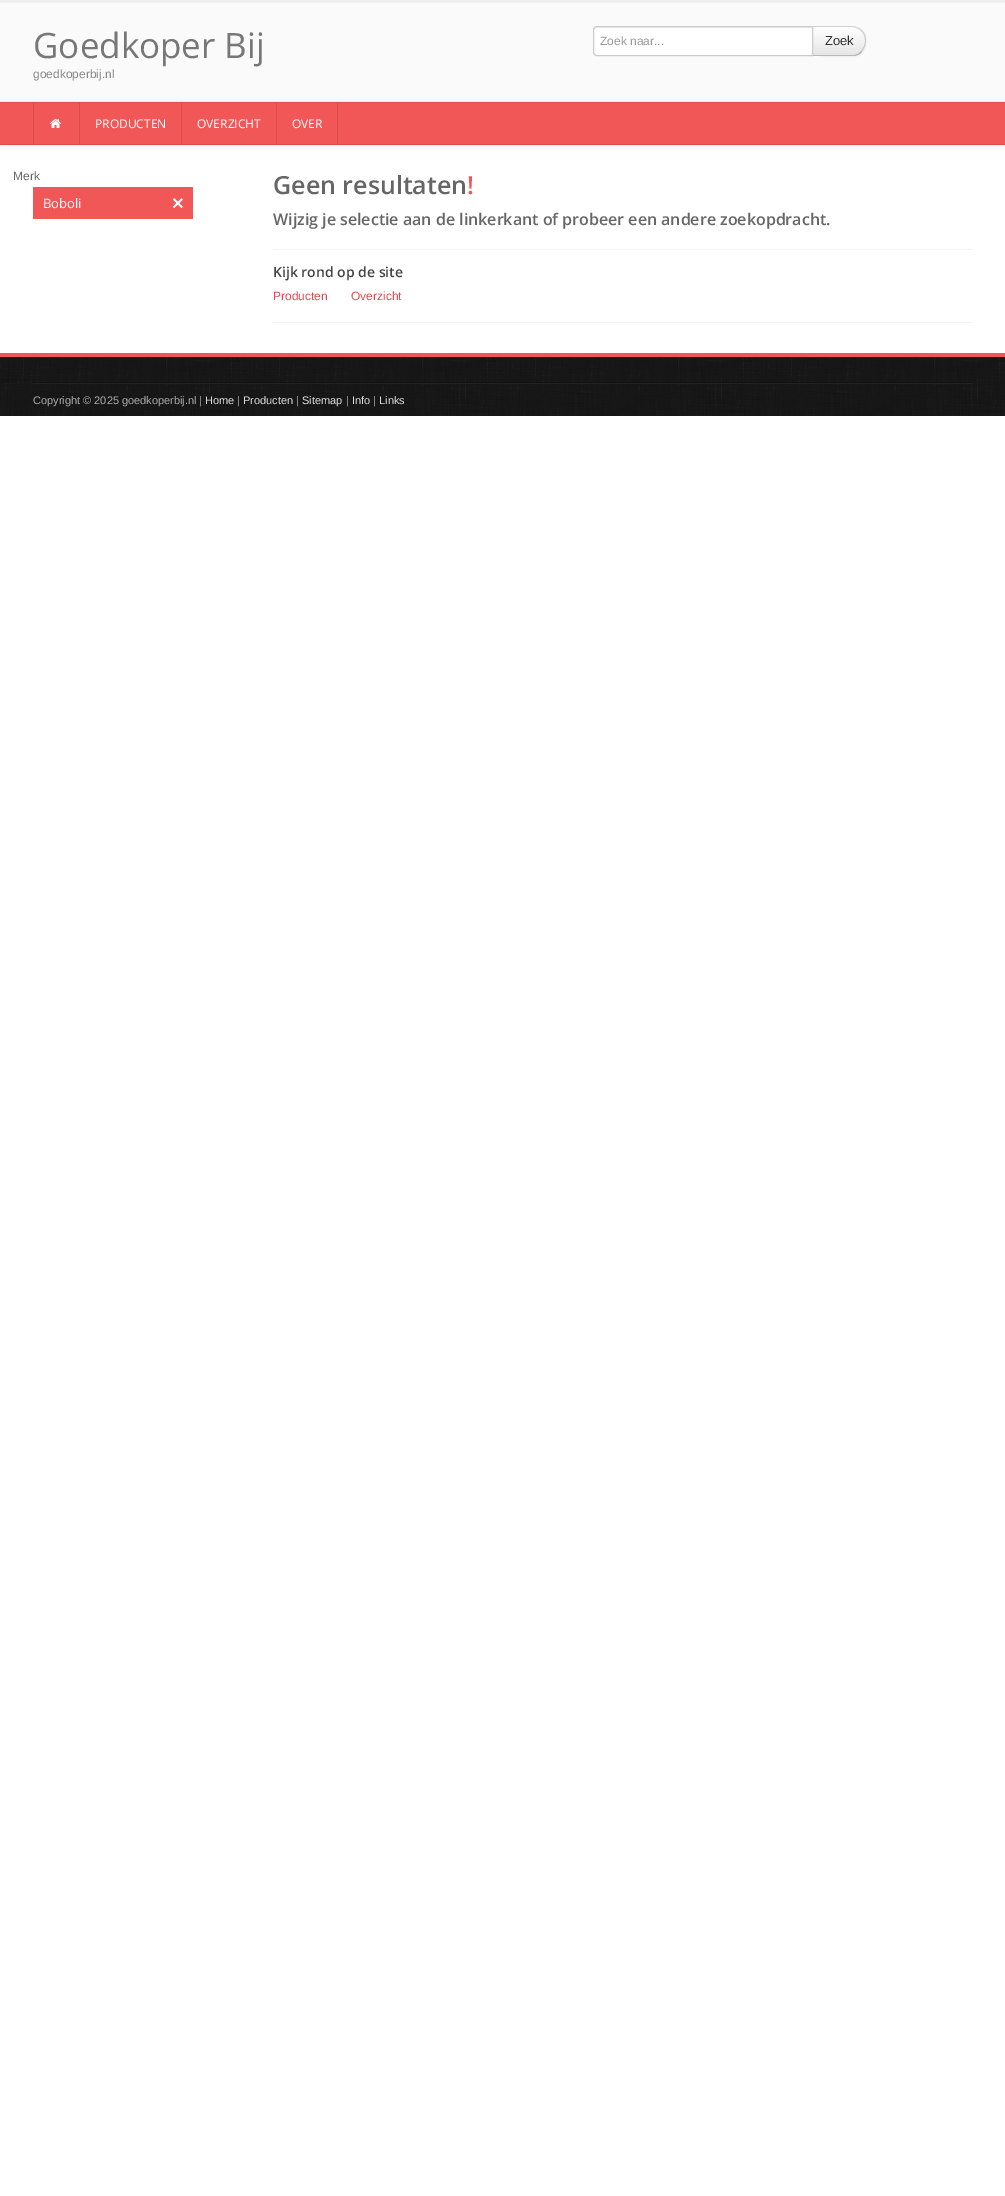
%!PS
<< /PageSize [1005 2196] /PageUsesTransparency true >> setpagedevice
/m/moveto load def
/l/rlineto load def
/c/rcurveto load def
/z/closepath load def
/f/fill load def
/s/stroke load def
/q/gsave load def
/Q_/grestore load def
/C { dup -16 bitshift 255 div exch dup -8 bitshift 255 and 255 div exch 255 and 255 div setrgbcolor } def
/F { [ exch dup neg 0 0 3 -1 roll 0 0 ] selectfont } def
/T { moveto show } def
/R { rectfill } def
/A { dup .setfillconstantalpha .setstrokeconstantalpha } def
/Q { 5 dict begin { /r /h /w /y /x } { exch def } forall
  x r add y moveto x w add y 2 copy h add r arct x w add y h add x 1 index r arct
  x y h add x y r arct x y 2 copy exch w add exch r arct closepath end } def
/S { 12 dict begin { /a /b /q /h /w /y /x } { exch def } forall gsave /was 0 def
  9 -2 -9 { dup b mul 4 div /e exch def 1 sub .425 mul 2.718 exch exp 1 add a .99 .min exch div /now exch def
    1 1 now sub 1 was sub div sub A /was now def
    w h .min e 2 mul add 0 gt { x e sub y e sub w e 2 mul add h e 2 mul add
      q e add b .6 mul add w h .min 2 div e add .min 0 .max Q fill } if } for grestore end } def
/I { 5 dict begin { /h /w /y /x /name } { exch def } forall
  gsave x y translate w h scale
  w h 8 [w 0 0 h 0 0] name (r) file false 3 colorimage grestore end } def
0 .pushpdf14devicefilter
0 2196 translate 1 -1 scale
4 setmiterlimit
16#FFFFFF C
0 0 1005 2196 R
16#EEEEEE C
0 0 1005 3 R
16#FAFAFA C
0 3 1005 99 R
/OpenSans-Regular 35 F
16#777777 C
(Goedkoper Bij) 33 58 T
/LiberationSans-Regular 12 F
16#888888 C
(goedkoperbij.nl) 33 78 T
16#000000 C
812 27 54 30 14 1 .05 S
16#F5F5F5 C
812 26 m 40 0 l 7.5 0 14 6.5 14 14 c 0 2 l 0 7.5 -6.5 14 -14 14 c -40 0 l z f
q
812 26 m 40 0 l 7.5 0 14 6.5 14 14 c 0 2 l 0 7.5 -6.5 14 -14 14 c -40 0 l z clip newpath
q 813 27 m 53 0 l 0 28 l -53 0 l z clip newpath
<< /ShadingType 2 /ColorSpace /DeviceRGB /Coords [839 27 839 55] /Extend [true true] /Function << /FunctionType 2 /Domain [0 1] /C0 [1 1 1] /C1 [.902 .902 .902] /N 1 >> >> shfill Q_
Q_
0.15 A
16#000000 C
812 26 m 1 1 l 40 0 l 3 1 6 2 8 4 c 1 -1 l -3 -3 -8 -4 -13 -4 c z f
862 30 m 6 5.5 5 16 -.5 21.5 c -.5 -.5 l 5 -5 5.5 -15 0 -20 c z f
0.25 A
855 56 m 3 -1 5 -2 7 -4 c -1 -1 l -1 2 -3 3 -6 4 c -42 0 l -1 1 l z f
1 A
16#FFFFFF C
597 26 m 216 0 l 0 30 l -216 0 l -2 0 -4 -2 -4 -4 c 0 -22 l 0 -2 2 -4 4 -4 c z f
16#ECECEC C
597 28 m 215 0 l 0 -1 l -215 0 l -2 0 -3 1 -3 3 c 0 1 l 0 -2 1 -3 3 -3 c z f
16#CCCCCC C
597 26.5 m 215.5 0 l 0 29 l -215.5 0 l -2 0 -3.5 -1.5 -3.5 -3.5 c 0 -22 l 0 -2 1.5 -3.5 3.5 -3.5 c z s
16#999999 C
(Zoek naar...) 600 45 T
/LiberationSans-Regular 13 F
16#333333 C
(Zoek) 825 45 T
16#000000 C
0 103 1005 43 0 2 .07 S
16#F25758 C
0 103 1005 41 R
16#DF4C4D C
0 102 1005 1 R
0 144 1005 1 R
33 103 1 41 R
79 103 1 41 R
(1.rgb) 50 118 11 10 I
181 103 1 41 R
/OpenSans-Regular 12 F
16#FFFFFF C
(PRODUCTEN) 95 128 T
16#DF4C4D C
276 103 1 41 R
16#FFFFFF C
(OVERZICHT) 197 128 T
16#DF4C4D C
337 103 1 41 R
16#FFFFFF C
(OVER) 292 128 T
/LiberationSans-Regular 12 F
16#666666 C
(Merk) 13 180 T
16#F25758 C
33 187 160 32 R
/OpenSans-Regular 13 F
16#FFFFFF C
(Boboli) 43 208 T
(2.rgb) 173 198 10 10 I
/OpenSans-SemiBold 25 F
16#666666 C
(Geen resultaten) 273 194 T
16#F25758 C
(!) 467 194 T
/OpenSans-SemiBold 16 F
16#666666 C
(Wijzig je selectie aan de linkerkant of probeer een andere zoekopdracht.) 273 225 T
16#F4F4F4 C
273 249 700 1 R
/OpenSans-SemiBold 14 F
16#444444 C
(Kijk rond op de site) 273 277 T
/LiberationSans-Regular 12 F
16#DF4C4D C
(Producten) 273 300 T
(Overzicht) 351 300 T
16#F4F4F4 C
273 322 700 1 R
(3.rgb) 0 357 1005 59 I
16#F25758 C
0 353 1005 4 R
16#111111 C
33 382 940 1 R
16#222222 C
33 383 940 1 R
/LiberationSans-Regular 11 F
16#AAAAAA C
(Copyright © 2025 goedkoperbij.nl |) 33 404 T
16#DDDDDD C
(Home) 205 404 T
16#AAAAAA C
(|) 237 404 T
16#DDDDDD C
(Producten) 243 404 T
16#AAAAAA C
(|) 296 404 T
16#DDDDDD C
(Sitemap) 302 404 T
16#AAAAAA C
(|) 346 404 T
16#DDDDDD C
(Info) 352 404 T
16#AAAAAA C
(|) 373 404 T
16#DDDDDD C
(Links) 379 404 T
.poppdf14devicefilter showpage
